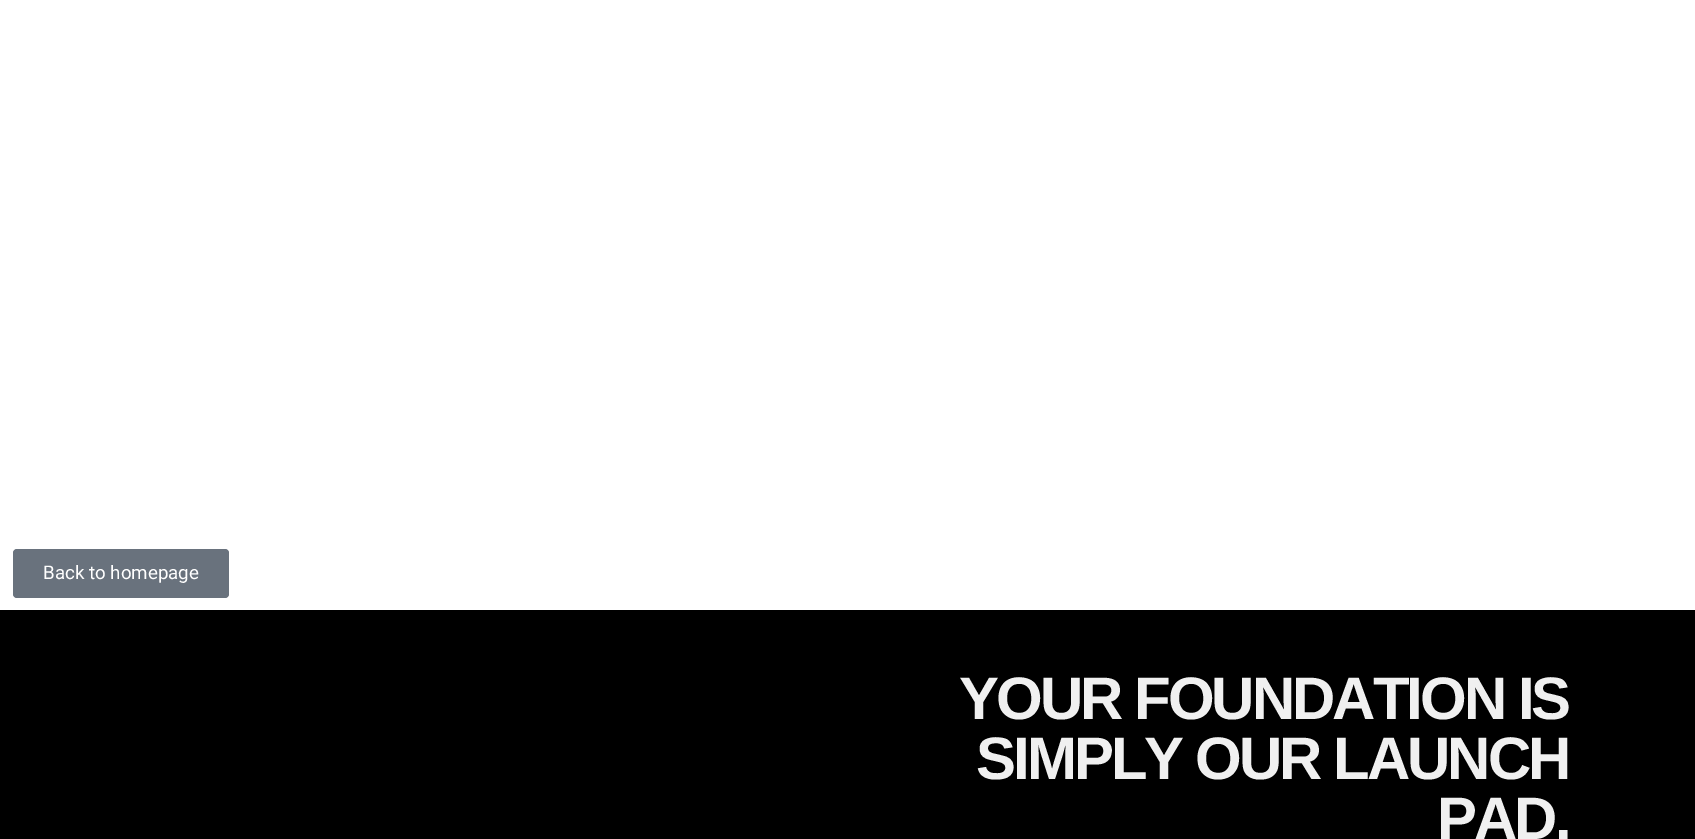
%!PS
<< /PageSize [1695 839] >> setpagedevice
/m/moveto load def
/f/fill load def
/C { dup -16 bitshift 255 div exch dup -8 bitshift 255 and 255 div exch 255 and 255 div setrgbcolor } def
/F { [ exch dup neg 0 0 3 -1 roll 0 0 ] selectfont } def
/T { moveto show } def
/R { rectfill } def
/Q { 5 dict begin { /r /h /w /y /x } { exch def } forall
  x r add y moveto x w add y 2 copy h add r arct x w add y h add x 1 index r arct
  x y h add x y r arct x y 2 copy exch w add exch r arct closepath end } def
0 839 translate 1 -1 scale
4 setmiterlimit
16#FFFFFF C
0 0 1695 839 R
16#69727D C
13 549 216 49 4 Q f
/Roboto-Regular 18.75 F
16#FFFFFF C
(Back to homepage) 43 579 T
16#000000 C
0 610 1695 229 R
/LiberationSans-Bold 60 F
16#F0F0F0 C
959 719 m -3 0 (YOUR FOUNDATION IS) ashow
976 779 m -3 0 (SIMPLY OUR LAUNCH) ashow
1437 839 m -3 0 (PAD.) ashow
showpage
